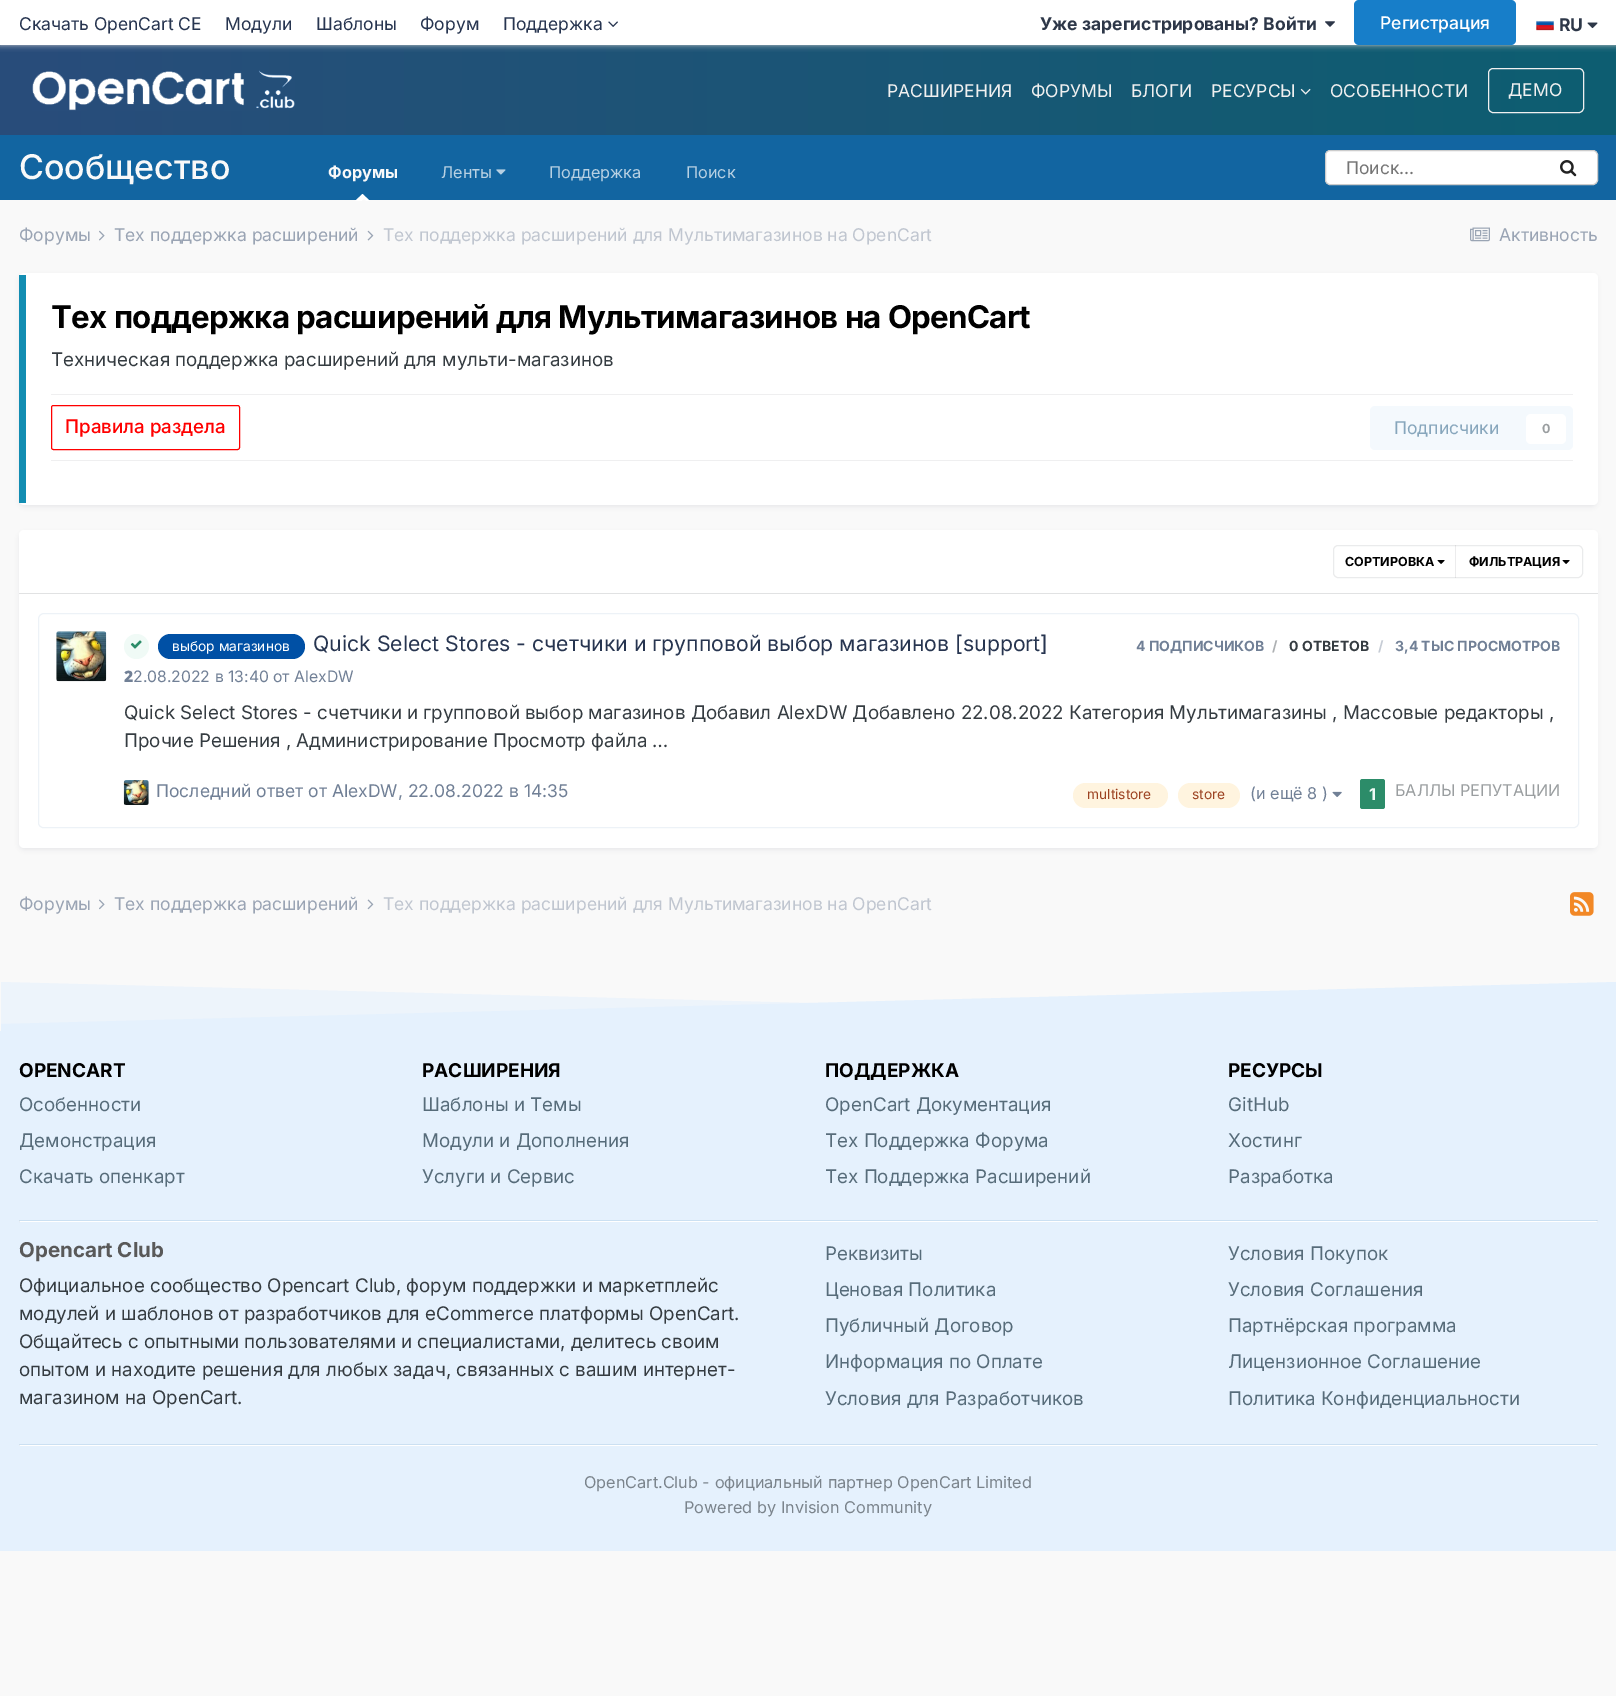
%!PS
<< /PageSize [1616 1696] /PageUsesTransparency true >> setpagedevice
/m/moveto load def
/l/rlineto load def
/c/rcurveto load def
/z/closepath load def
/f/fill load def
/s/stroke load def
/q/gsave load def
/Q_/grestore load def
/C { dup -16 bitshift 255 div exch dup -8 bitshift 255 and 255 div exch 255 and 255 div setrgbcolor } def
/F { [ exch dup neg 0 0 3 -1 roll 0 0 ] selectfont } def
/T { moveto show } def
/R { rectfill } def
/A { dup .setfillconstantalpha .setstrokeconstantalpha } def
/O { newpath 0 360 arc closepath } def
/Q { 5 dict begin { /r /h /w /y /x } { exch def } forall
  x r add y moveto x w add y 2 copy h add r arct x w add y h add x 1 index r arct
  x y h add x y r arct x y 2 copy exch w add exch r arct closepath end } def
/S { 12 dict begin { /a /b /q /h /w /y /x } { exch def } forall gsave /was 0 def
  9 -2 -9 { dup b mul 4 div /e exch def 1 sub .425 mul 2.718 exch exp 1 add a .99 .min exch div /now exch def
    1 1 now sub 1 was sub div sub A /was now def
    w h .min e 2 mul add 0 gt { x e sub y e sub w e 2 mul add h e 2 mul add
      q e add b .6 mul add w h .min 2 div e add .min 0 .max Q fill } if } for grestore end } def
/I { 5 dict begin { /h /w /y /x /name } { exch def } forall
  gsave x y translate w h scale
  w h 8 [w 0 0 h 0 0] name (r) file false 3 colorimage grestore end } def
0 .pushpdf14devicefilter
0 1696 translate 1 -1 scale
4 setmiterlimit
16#F9F9F9 C
0 0 1616 1696 R
q 0 45 m 1616 0 l 0 90 l -1616 0 l z clip newpath
<< /ShadingType 2 /ColorSpace /DeviceRGB /Coords [0 90 1616 90] /Extend [true true] /Function << /FunctionType 2 /Domain [0 1] /C0 [.161 .298 .482] /C1 [.051 .369 .443] /N 1 >> >> shfill Q_
16#CCCCCC C
0 0 1616 45 0 3 1 S
16#FFFFFF C
0 0 1616 45 R
/Inter-Regular 17.5 F
16#273550 C
(Скачать OpenCart CE) 19 30 T
(Модули) 225 30 T
(Шаблоны) 316 30 T
(Форум) 420 30 T
(Поддержка) 503 30 T
(1.rgb) 608 21 10 6 I
/Inter-Bold 17.5 F
16#2D3748 C
(Уже зарегистрированы? Войти) 1040 30 T
(2.rgb) 1325 21 10 6 I
16#177EC9 C
1354 0 162 45 5 Q f
/Inter-Medium 17.5 F
16#FFFFFF C
(Регистрация) 1380 29 T
(3.rgb) 1536 20 18 11 I
/Inter-Bold 17.5 F
16#2D3748 C
(RU) 1559 31 T
(4.rgb) 1587 22 11 7 I
(5.rgb) 32 70 263 41 I
/Inter-Regular 17.5 F
16#F0F0F0 C
(РАСШИРЕНИЯ) 887 97 T
(ФОРУМЫ) 1031 97 T
(БЛОГИ) 1131 97 T
(РЕСУРСЫ) 1211 97 T
(6.rgb) 1300 88 11 7 I
(ОСОБЕННОСТИ) 1330 97 T
1488.5 68.5 95 44 4.5 Q s
(ДЕМО) 1508 96 T
16#1265A1 C
0 135 1616 65 R
/Inter-Medium 34 F
16#F9F9F9 C
(Сообщество) 19 179 T
/Inter-Bold 16.25 F
(Форумы) 328 178 T
16#FFFFFF C
370 201 m -15 0 l 7.5 -7 l z f
16#F9F9F9 C
376 211 m -25 0 l 13 -12 l z f
/Inter-Regular 16.25 F
16#B8D1E3 C
(Ленты) 441 178 T
(7.rgb) 496 169 10 6 I
(Поддержка) 549 178 T
(Поиск) 686 178 T
16#FFFFFF C
1325.5 150.5 272 34 4.5 Q q f Q_
16#CCCCCC C
s
/Inter-Regular 17.5 F
16#757575 C
(Поиск...) 1346 174 T
(8.rgb) 1560 160 17 17 I
16#9AA4B4 C
(Форумы) 19 241 T
(9.rgb) 99 230 6 11 I
(Тех поддержка расширений) 114 241 T
(10.rgb) 367 230 7 11 I
16#C0C6D0 C
(Тех поддержка расширений для Мультимагазинов на OpenCart) 383 241 T
(11.rgb) 1470 227 20 15 I
16#9AA4B4 C
(Активность) 1499 241 T
16#2D3748 C
20 276 1576 230 4 2.5 .1 S
16#FFFFFF C
19 273 1579 232 5 Q f
16#128DB2 C
19 275 7 228 R
/Inter-Bold 31.25 F
16#000000 C
51 328 m -.62 0 (Тех поддержка расширений для Мультимагазинов на OpenCart) ashow
/Inter-Regular 18.75 F
16#353C41 C
(Техническая поддержка расширений для мульти-магазинов) 51 366 T
16#EFEFF0 C
51 394 1522 1 R
16#FF0000 C
51.5 405.5 188 44 2 Q s
/Inter-Medium 18.75 F
(Правила раздела) 65 433 T
16#F4F9FD C
1370 406 203 44 5 Q f
/Inter-Regular 17.5 F
16#87A6BC C
(Подписчики) 1394 434 T
16#FFFFFF C
1526 414 40 30 5 Q f
/Inter-Bold 12.5 F
16#9A9EA0 C
(0) 1542 433 T
16#EFEFF0 C
51 460 1522 1 R
16#2D3748 C
20 534 1576 315 4 2.5 .1 S
16#FFFFFF C
19 530 1579 318 5 Q f
16#E1E2E3 C
19 593 1579 1 R
(12.rgb) 1437 560 8 4 I
16#ECECED C
1455 545 1 33 R
(12.rgb) 1562 560 8 4 I
0.1 A
16#353C41 C
1333.5 545.5 249 32 4.5 Q s
1 A
16#000000 C
(СОРТИРОВКА) 1345 566 T
(ФИЛЬТРАЦИЯ) 1469 566 T
16#EDF2F7 C
44 613.5 m 1529 0 l 3 0 5.5 2.5 5.5 5.5 c 0 204 l 0 2.5 -2 4.5 -4.5 4.5 c -1531 0 l -2.5 0 -4.5 -2 -4.5 -4.5 c 0 -204 l 0 -3 2.5 -5.5 5.5 -5.5 c z s
(13.rgb) 56 631 51 51 I
16#F0FAF6 C
136.5 646.5 12.5 O f
(14.rgb) 130 640 12 9 I
16#0050A5 C
158 634 147 25 12.5 Q f
/Inter-Regular 13.75 F
16#FFFFFF C
(выбор магазинов) 172 651 T
/Inter-Regular 21.25 F
16#273550 C
(Quick Select Stores - счетчики и групповой выбор магазинов [support]) 313 651 T
/NotoSans-Black 15.75 F
16#718096 C
(2) 124 682 T
/Inter-Regular 15.75 F
(2.08.2022 в 13:40 от AlexDW) 133 682 T
/Inter-Bold 14 F
(4 ПОДПИСЧИКОВ) 1136 651 T
16#AEB1B3 C
(/) 1272 651 T
16#353C41 C
(0 ОТВЕТОВ) 1289 651 T
16#C6CCD5 C
(/) 1378 651 T
16#718096 C
(3,4 ТЫС ПРОСМОТРОВ) 1395 651 T
/Inter-Regular 18.75 F
16#353C41 C
(Quick Select Stores - счетчики и групповой выбор магазинов Добавил AlexDW Добавлено 22.08.2022 Категория Мультимагазины , Массовые редакторы ,) 124 719 T
(Прочие Решения , Администрирование Просмотр файла …) 124 747 T
(15.rgb) 123 780 26 25 I
/Inter-Regular 17.5 F
16#718096 C
(Последний ответ от AlexDW, 22.08.2022 в 14:35) 156 797 T
16#FFF4DF C
1073 783 95 25 12.5 Q f
/Inter-Regular 13.75 F
16#9C4221 C
(multistore) 1087 799 T
16#FFF4DF C
1178 783 62 25 12.5 Q f
16#9C4221 C
(store) 1192 799 T
/Inter-Regular 16.25 F
16#718096 C
(\(и ещё 8 \)) 1250 799 T
(16.rgb) 1332 791 10 6 I
16#2C8C69 C
1360 779 25 30 2.5 Q f
/Inter-Bold 16.25 F
16#F0FAF6 C
(1) 1369 800 T
/Inter-Regular 16.25 F
16#9A9EA0 C
(БАЛЛЫ РЕПУТАЦИИ) 1395 796 T
/Inter-Regular 17.5 F
16#9AA4B4 C
(Форумы) 19 910 T
(17.rgb) 99 899 6 11 I
(Тех поддержка расширений) 114 910 T
(18.rgb) 367 899 7 11 I
16#C0C6D0 C
(Тех поддержка расширений для Мультимагазинов на OpenCart) 383 910 T
(19.rgb) 1570 892 24 24 I
16#EDF4FB C
1 982 m 1615 42 l 0 65 l -1615 -42 l z f
16#E5F1FD C
1 1024 m 1615 -42 l 0 65 l -1615 42 l z f
0 1031 1616 520 R
/Inter-Bold 19 F
16#000000 C
(OPENCART) 19 1077 T
/Inter-Regular 18.75 F
16#576C7A C
(Особенности) 19 1111 T
(Демонстрация) 19 1147 T
(Скачать опенкарт) 19 1183 T
/Inter-Bold 19 F
16#000000 C
(РАСШИРЕНИЯ) 422 1077 T
/Inter-Regular 18.75 F
16#576C7A C
(Шаблоны и Темы) 422 1111 T
(Модули и Дополнения) 422 1147 T
(Услуги и Сервис) 422 1183 T
/Inter-Bold 19 F
16#000000 C
(ПОДДЕРЖКА) 825 1077 T
/Inter-Regular 18.75 F
16#576C7A C
(OpenCart Документация) 825 1111 T
(Тех Поддержка Форума) 825 1147 T
(Тех Поддержка Расширений) 825 1183 T
/Inter-Bold 19 F
16#000000 C
(РЕСУРСЫ) 1228 1077 T
/Inter-Regular 18.75 F
16#576C7A C
(GitHub) 1228 1111 T
(Хостинг) 1228 1147 T
(Разработка) 1228 1183 T
16#CBE0F2 C
19 1220 m 1579 0 l -2 1 l -1576 0 l z f
0.08 A
16#353C41 C
1597.5 1220 m 0 2.5 l -1.5 -1.5 l z f
1 A
16#FFFFFF C
1598 1222 m -1579 0 l 1 -1 l 1576 0 l z f
0.08 A
16#353C41 C
19 1222.5 m 0 -2.5 l 1 1 l z f
/Inter-Bold 20.5 F
1 A
16#595959 C
(Opencart Club) 19 1257 T
/Inter-Regular 18.75 F
16#353C41 C
(Официальное сообщество Opencart Club, форум поддержки и маркетплейс) 19 1292 T
(модулей и шаблонов от разработчиков для eCommerce платформы OpenCart.) 19 1320 T
(Общайтесь с опытными пользователями и специалистами, делитесь своим) 19 1348 T
(опытом и находите решения для любых задач, связанных с вашим интернет-) 19 1376 T
(магазином на OpenCart.) 19 1404 T
16#576C7A C
(Реквизиты) 825 1260 T
(Ценовая Политика) 825 1296 T
(Публичный Договор) 825 1332 T
(Информация по Оплате) 825 1368 T
(Условия для Разработчиков) 825 1405 T
(Условия Покупок) 1228 1260 T
(Условия Соглашения) 1228 1296 T
(Партнёрская программа) 1228 1332 T
(Лицензионное Соглашение) 1228 1368 T
(Политика Конфиденциальности) 1228 1405 T
16#CBE0F2 C
19 1444 m 1579 0 l -2 1 l -1576 0 l z f
0.08 A
16#353C41 C
1597.5 1444 m 0 2 l -1.5 -1 l z f
1 A
16#FFFFFF C
1598 1446 m -1579 0 l 1 -1 l 1576 0 l z f
0.08 A
16#353C41 C
19 1446 m 0 -2 l 1 1 l z f
/Inter-Regular 16.25 F
1 A
16#7B848C C
(OpenCart.Club - официальный партнер OpenCart Limited) 584 1488 T
(Powered by Invision Community) 684 1513 T
.poppdf14devicefilter showpage
